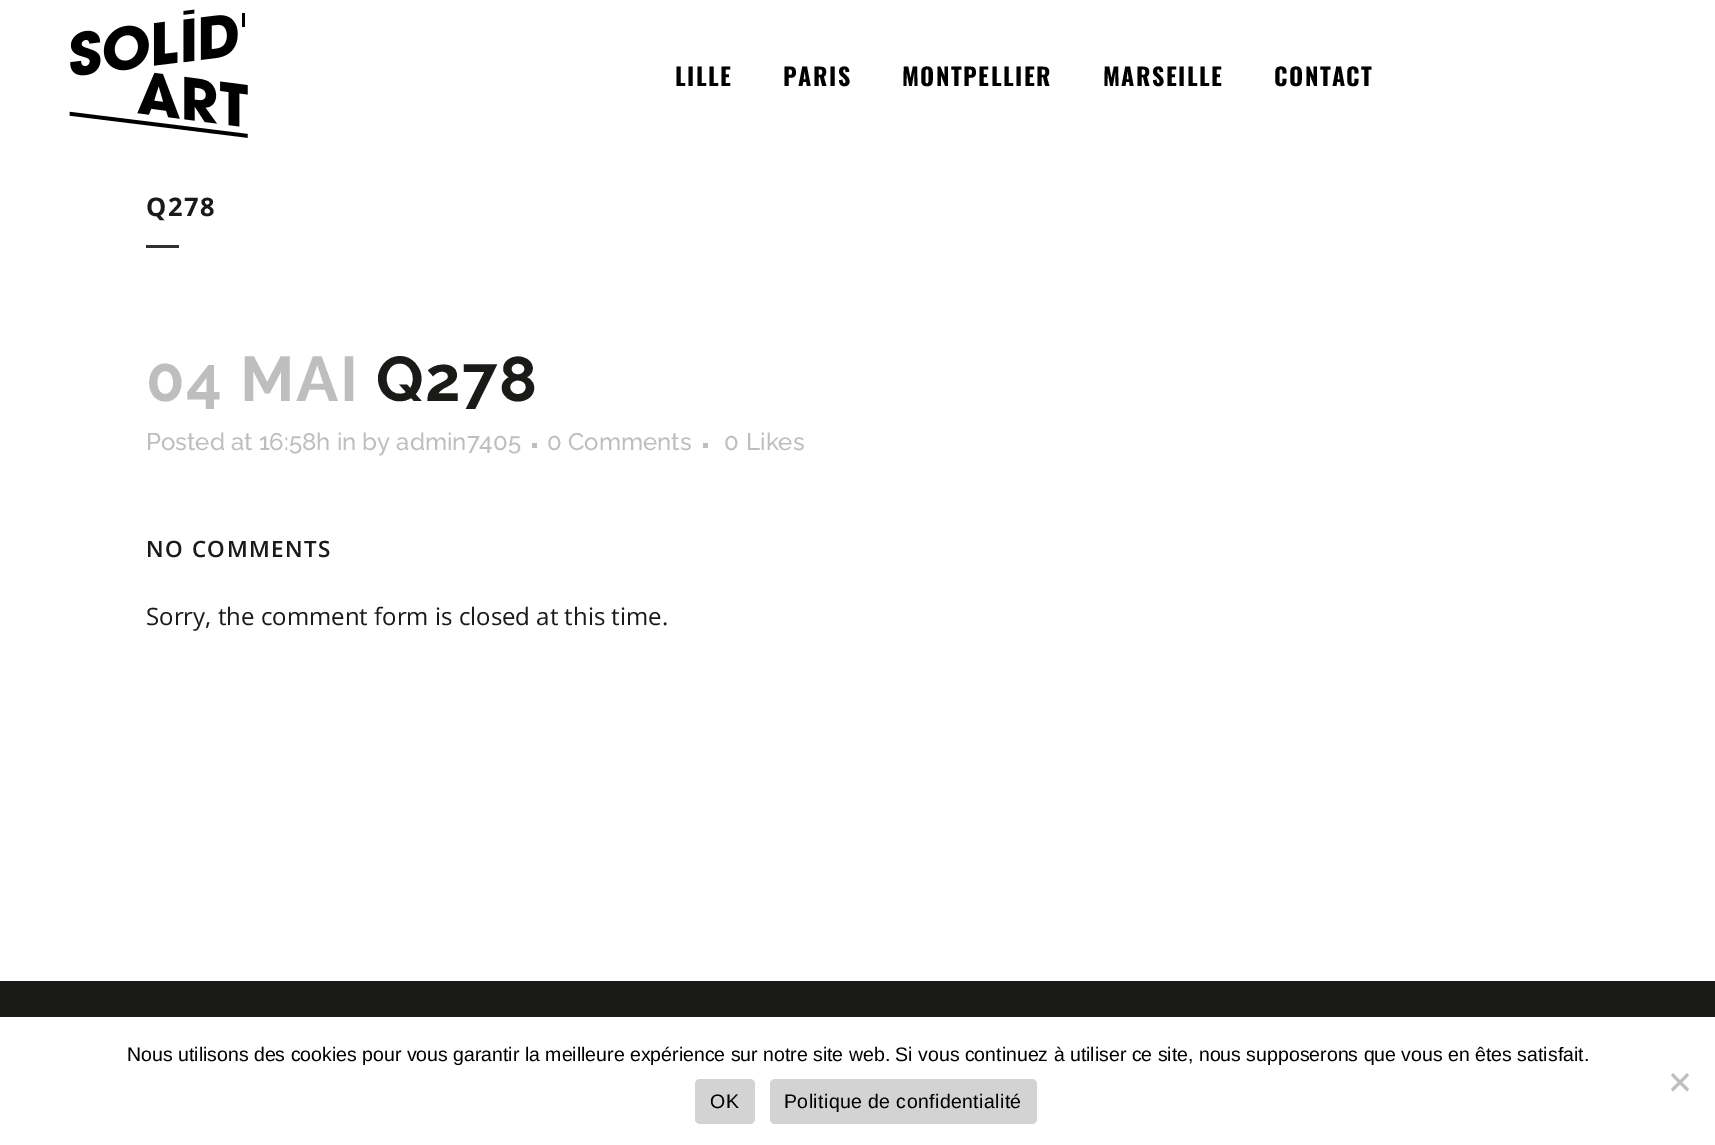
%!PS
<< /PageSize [1715 1145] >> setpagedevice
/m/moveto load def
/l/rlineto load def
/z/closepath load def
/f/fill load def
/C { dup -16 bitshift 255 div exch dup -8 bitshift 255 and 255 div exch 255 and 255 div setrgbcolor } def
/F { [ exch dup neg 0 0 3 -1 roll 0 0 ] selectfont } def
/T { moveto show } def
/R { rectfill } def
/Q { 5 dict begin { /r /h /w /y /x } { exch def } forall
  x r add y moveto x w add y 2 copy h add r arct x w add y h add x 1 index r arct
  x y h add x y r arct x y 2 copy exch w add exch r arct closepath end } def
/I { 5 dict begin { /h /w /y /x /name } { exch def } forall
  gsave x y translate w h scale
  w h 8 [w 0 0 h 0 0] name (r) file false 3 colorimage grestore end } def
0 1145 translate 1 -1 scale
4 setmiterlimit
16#FFFFFF C
0 0 1715 1145 R
(1.rgb) 69 9 179 129 I
/Oswald-Bold 24 F
16#000000 C
675 86 m 1.5 0 (LILLE) ashow
783 86 m 1.5 0 (PARIS) ashow
902 86 m 1.5 0 (MONTPELLIER) ashow
1103 86 m 1.5 0 (MARSEILLE) ashow
1274 86 m 1.5 0 (CONTACT) ashow
/OpenSans-Bold 25.5 F
16#1A1A18 C
146 216 m 1.5 0 (Q278) ashow
16#303030 C
146 245 33 3 R
/Raleway-Bold 63 F
16#BEBEBE C
146 401 m 1.5 0 (04 MAI) ashow
16#1A1A18 C
376 401 m 1.5 0 (Q278) ashow
/Raleway-Medium 24 F
16#BEBEBE C
(Posted at 16:58h in by admin7405) 146 450 T
532 443 5 5 R
(0 Comments) 547 450 T
703 443 5 5 R
(0) 724 450 T
(Likes) 746 450 T
/OpenSans-SemiBold 22.5 F
16#1A1A18 C
146 557 m 1.5 0 (NO COMMENTS) ashow
/OpenSans-Regular 24 F
(Sorry, the comment form is closed at this time.) 146 625 T
0 981 1715 36 R
/LiberationSans-Regular 19.5 F
16#000000 C
(Nous utilisons des cookies pour vous garantir la meilleure expérience sur notre site web. Si vous continuez à utiliser ce site, nous supposerons que vous en êtes satisfait.) 127 1061 T
16#C0C0C0 C
1687 1073 m 2 2.5 l -16 16 l -2 -2.5 l z f
1671 1075.5 m 2 -2.5 l 16 16 l -2 2.5 l z f
16#D3D3D3 C
695 1079 60 45 5 Q f
16#000000 C
710 1108 m .4 0 (OK) ashow
16#D3D3D3 C
770 1079 267 45 5 Q f
16#000000 C
784 1108 m .4 0 (Politique de confidentialité) ashow
showpage
